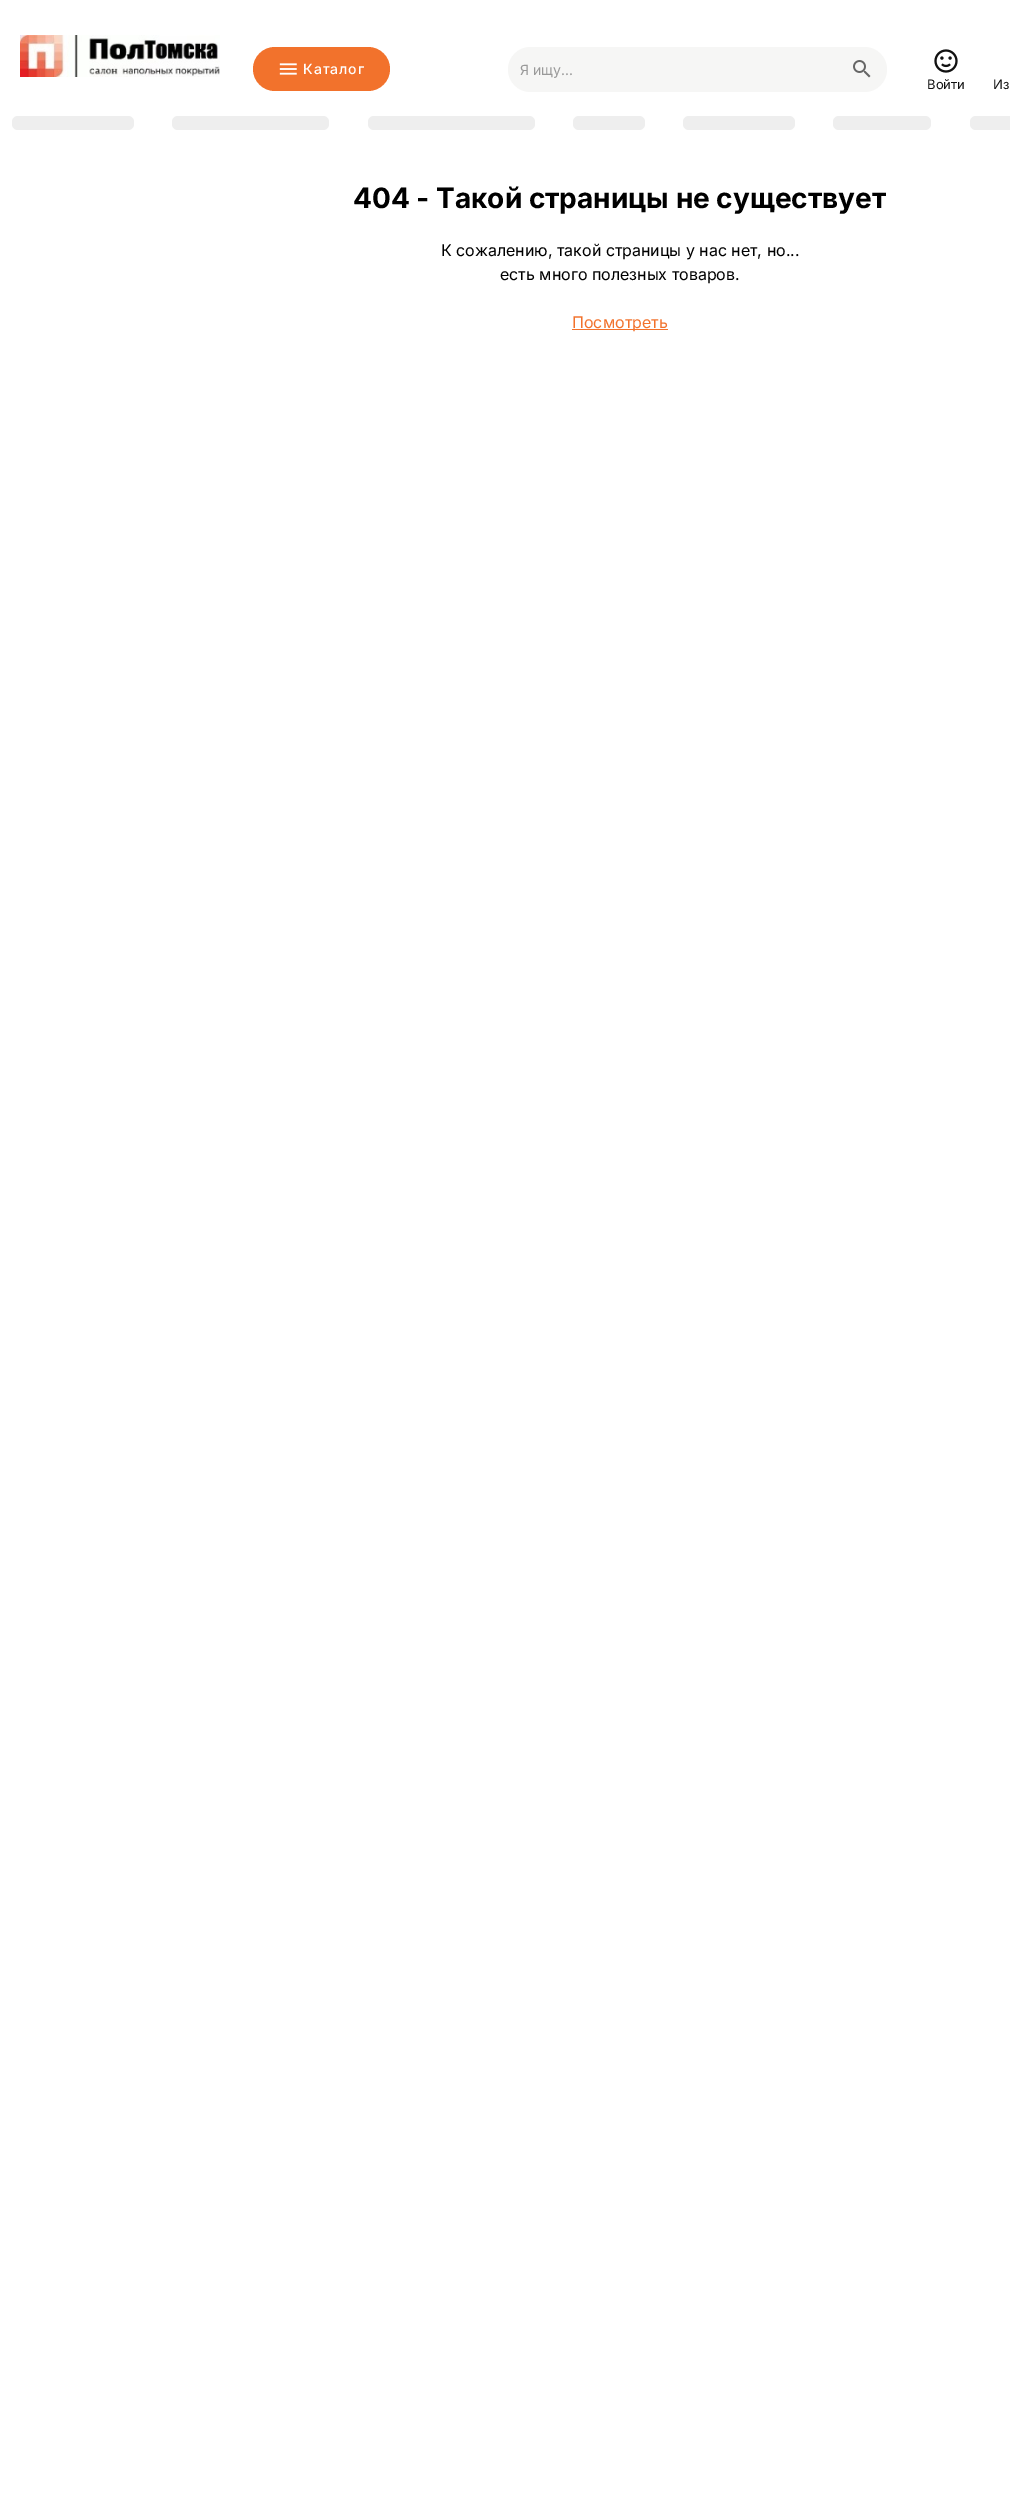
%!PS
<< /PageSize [1010 2500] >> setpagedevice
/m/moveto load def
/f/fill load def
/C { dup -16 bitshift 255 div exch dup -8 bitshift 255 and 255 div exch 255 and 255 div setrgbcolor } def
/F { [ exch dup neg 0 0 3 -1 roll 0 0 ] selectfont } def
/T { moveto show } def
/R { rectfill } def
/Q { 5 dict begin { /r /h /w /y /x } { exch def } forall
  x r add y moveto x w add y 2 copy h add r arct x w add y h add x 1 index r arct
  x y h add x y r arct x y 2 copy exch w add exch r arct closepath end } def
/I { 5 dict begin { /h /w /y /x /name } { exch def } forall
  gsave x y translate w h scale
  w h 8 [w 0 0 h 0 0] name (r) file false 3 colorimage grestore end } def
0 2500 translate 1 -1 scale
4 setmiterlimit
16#FFFFFF C
0 0 1010 2500 R
(1.rgb) 20 35 200 42 I
16#F2722C C
253 47 137 44 22 Q f
(2.rgb) 279 63 18 12 I
/Inter-Medium 14 F
16#FFFFFF C
303 74 m 1 0 (Каталог) ashow
16#F6F6F5 C
508 47 379 45 22.5 Q f
/Inter-Regular 14 F
16#999999 C
(Я ищу...) 520 75 T
(3.rgb) 853 60 18 18 I
(4.rgb) 934 49 24 24 I
/Inter-Regular 13 F
16#111111 C
(Войти) 927 89 T
(Из) 993 89 T
16#EEEEEE C
12 116 122 14 6 Q f
172 116 157 14 6 Q f
368 116 167 14 6 Q f
573 116 72 14 6 Q f
683 116 112 14 6 Q f
833 116 98 14 6 Q f
970 116 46 14 6 Q f
/Inter-Bold 28 F
16#000000 C
(404 - Такой страницы не существует) 353 208 T
/Inter-Regular 16 F
(К сожалению, такой страницы у нас нет, но...) 441 256 T
(есть много полезных товаров.) 500 280 T
16#F2722C C
572 329 96 1 R
(Посмотреть) 572 328 T
showpage
